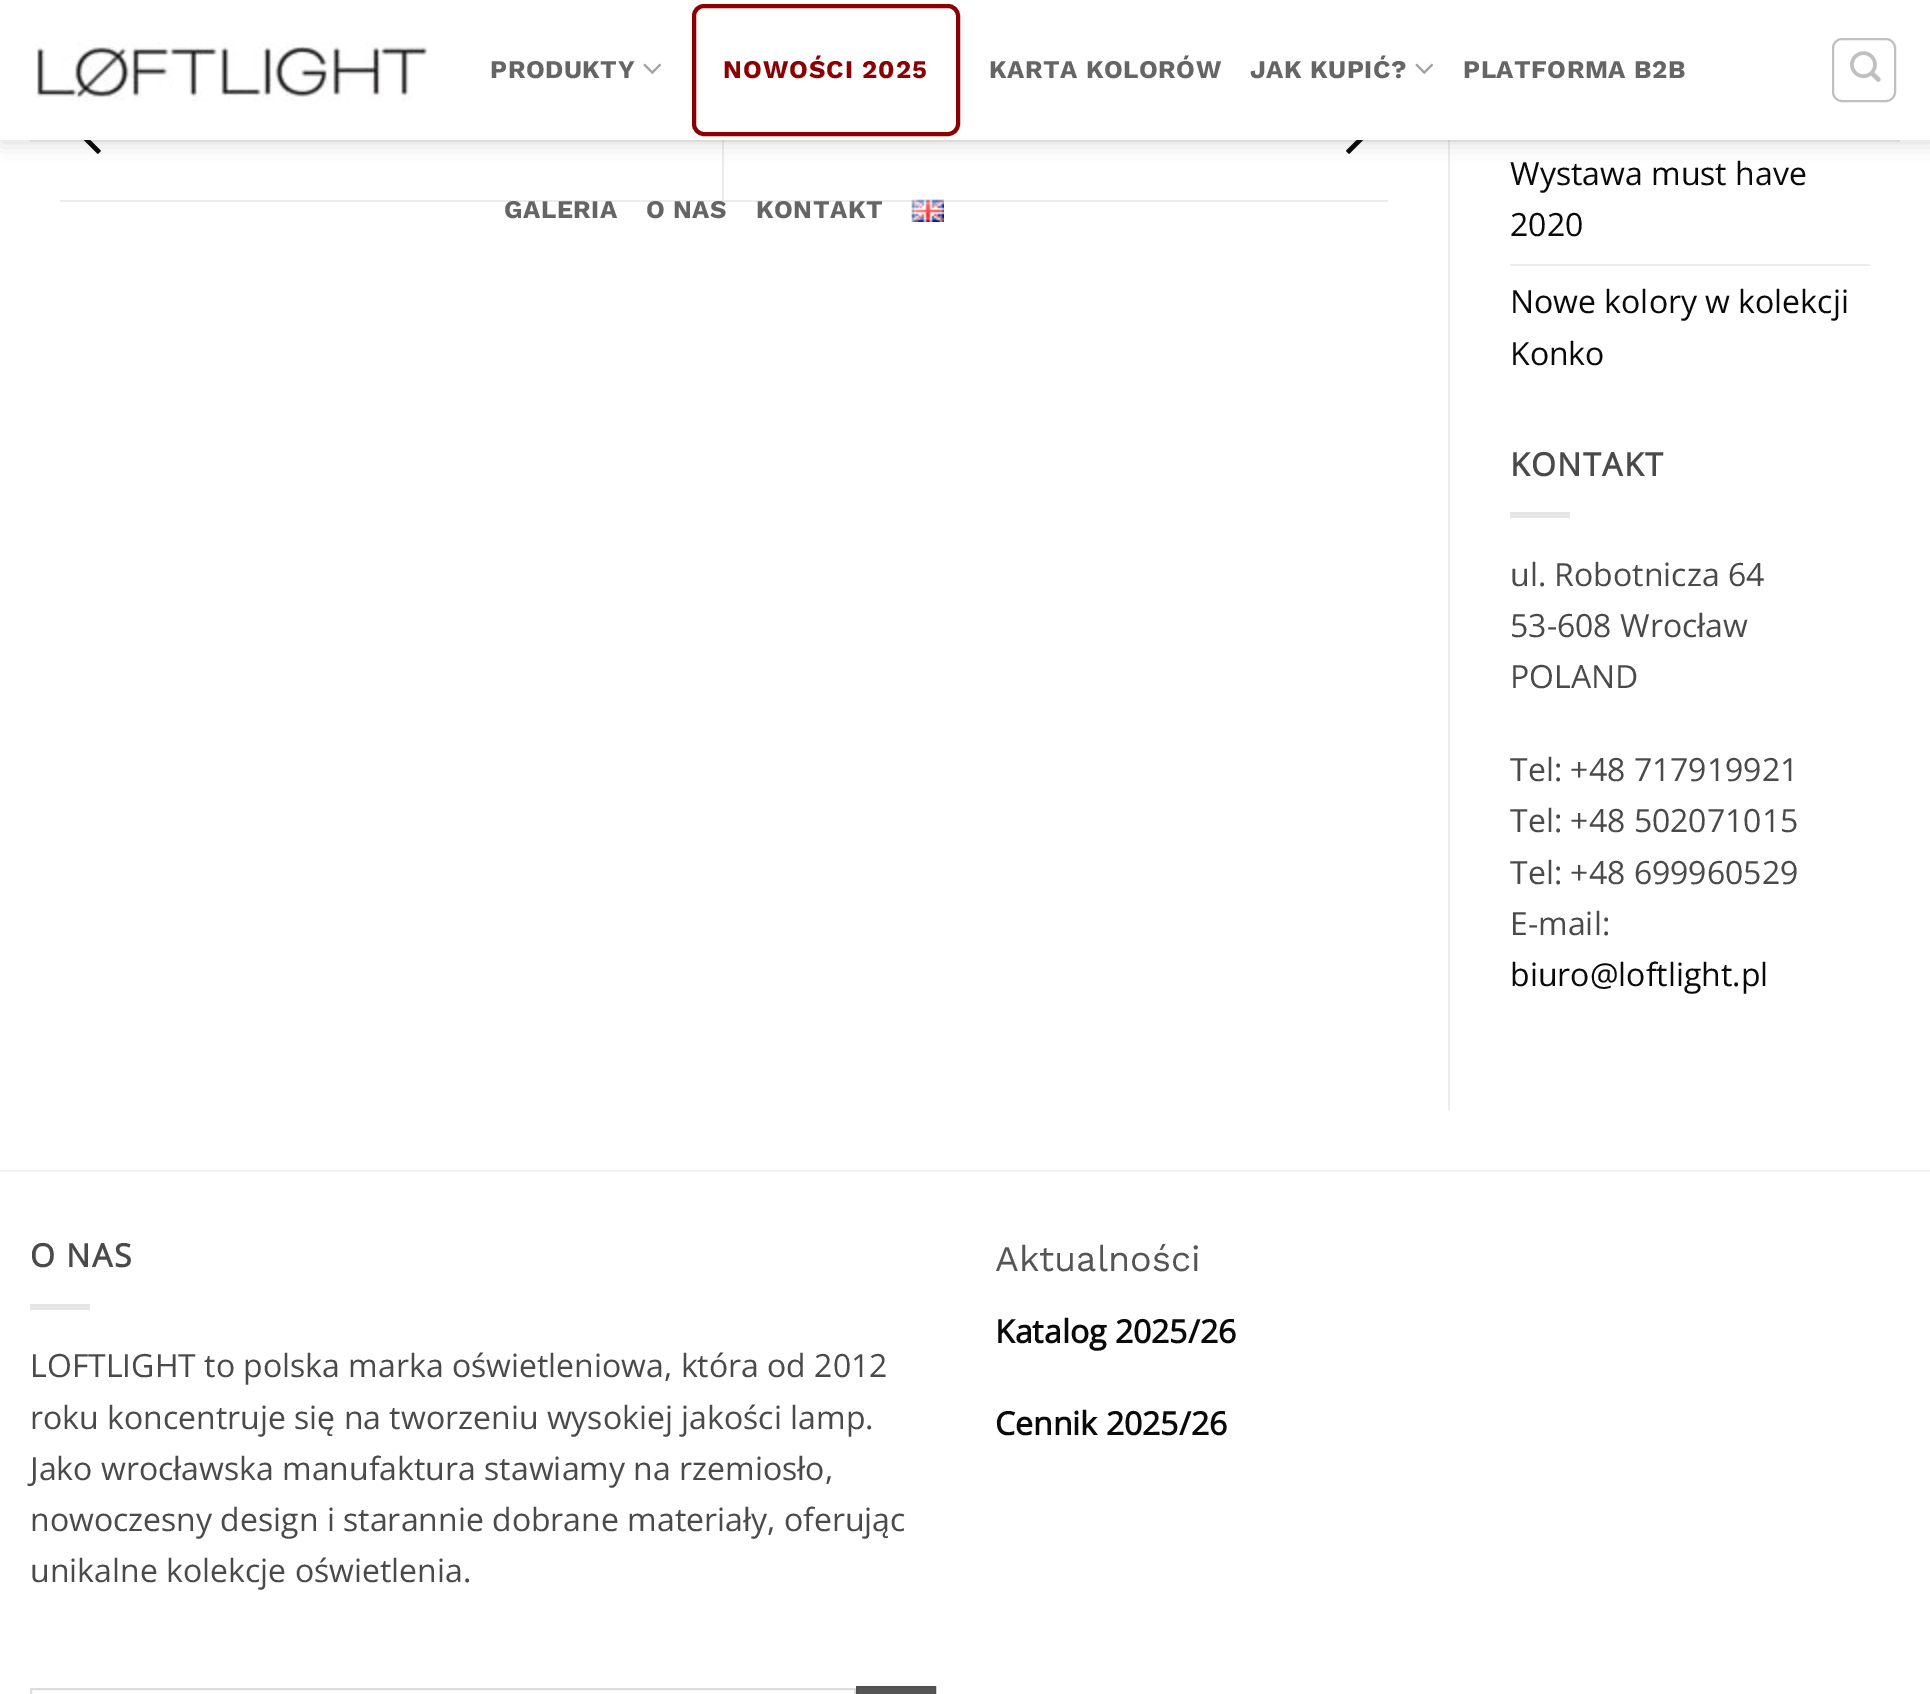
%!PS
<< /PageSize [1930 1694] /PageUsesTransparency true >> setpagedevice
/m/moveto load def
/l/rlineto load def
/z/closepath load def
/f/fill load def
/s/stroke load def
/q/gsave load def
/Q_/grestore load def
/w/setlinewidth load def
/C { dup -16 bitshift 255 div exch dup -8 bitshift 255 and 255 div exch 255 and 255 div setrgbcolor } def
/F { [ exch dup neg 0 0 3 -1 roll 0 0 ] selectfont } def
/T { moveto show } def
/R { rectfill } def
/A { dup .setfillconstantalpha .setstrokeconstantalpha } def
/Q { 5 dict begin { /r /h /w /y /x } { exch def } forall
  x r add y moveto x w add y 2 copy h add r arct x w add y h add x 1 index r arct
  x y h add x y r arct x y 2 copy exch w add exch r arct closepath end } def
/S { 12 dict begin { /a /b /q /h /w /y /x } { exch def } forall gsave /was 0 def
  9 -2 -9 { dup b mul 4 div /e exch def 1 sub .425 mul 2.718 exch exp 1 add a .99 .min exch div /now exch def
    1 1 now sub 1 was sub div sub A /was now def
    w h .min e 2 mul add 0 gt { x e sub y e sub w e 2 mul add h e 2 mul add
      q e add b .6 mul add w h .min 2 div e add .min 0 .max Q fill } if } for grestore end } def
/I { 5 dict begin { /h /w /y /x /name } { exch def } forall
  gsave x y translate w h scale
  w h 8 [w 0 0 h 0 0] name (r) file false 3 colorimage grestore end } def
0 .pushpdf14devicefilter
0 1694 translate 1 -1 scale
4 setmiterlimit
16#FFFFFF C
0 0 1930 1694 R
(5.rgb) 83 140 18 14 I
16#ECECEC C
722 140 2 60 R
(6.rgb) 1346 140 18 14 I
1448 140 2 970 R
16#000000 C
2 2 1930 140 0 10 .15 S
16#FFFFFF C
0 0 1930 140 R
(1.rgb) 36 42 394 60 I
/WorkSans-Bold 25.5 F
16#656565 C
490 78 m .5 0 (PRODUKTY) ashow
(2.rgb) 643 63 19 11 I
16#8B0000 C
4 w
694 6 264 128 10 Q s
723 78 m 1 0 (NOWOŚCI 2025) ashow
16#656565 C
989 78 m .5 0 (KARTA KOLORÓW) ashow
1250 78 m .5 0 (JAK KUPIĆ?) ashow
(2.rgb) 1415 63 19 11 I
1463 78 m .5 0 (PLATFORMA B2B) ashow
16#ECECEC C
60 200 1328 2 R
16#656565 C
504 218 m .5 0 (GALERIA) ashow
646 218 m .5 0 (O NAS) ashow
756 218 m .5 0 (KONTAKT) ashow
(3.rgb) 911 199 33 23 I
16#C0C0C0 C
2 w
1833 39 62 62 9 Q s
(4.rgb) 1850 51 31 31 I
0.1 A
16#4A4A4A C
30 140 1870 2 R
/OpenSans-Regular 32 F
1 A
16#0A0A0A C
(Wystawa must have) 1510 185 T
(2020) 1510 236 T
16#ECECEC C
1510 264 360 2 R
16#0A0A0A C
(Nowe kolory w kolekcji) 1510 313 T
(Konko) 1510 365 T
/OpenSans-Bold 32 F
16#4A4A4A C
1510 476 m 1.5 0 (KONTAKT) ashow
16#E6E6E6 C
1510 512 60 6 R
/OpenSans-Regular 32 F
16#4A4A4A C
(ul. Robotnicza 64) 1510 586 T
(53-608 Wrocław) 1510 637 T
(POLAND) 1510 688 T
(Tel: +48 717919921) 1510 781 T
(Tel: +48 502071015) 1510 832 T
(Tel: +48 699960529) 1510 884 T
(E-mail:) 1510 935 T
16#0A0A0A C
(biuro@loftlight.pl) 1510 986 T
16#F2F2F2 C
0 1170 1930 2 R
/OpenSans-Bold 32 F
16#4A4A4A C
30 1267 m 1.5 0 (O NAS) ashow
16#E6E6E6 C
30 1304 60 6 R
/OpenSans-Regular 32 F
16#4A4A4A C
(LOFTLIGHT to polska marka oświetleniowa, która od 2012) 30 1377 T
(roku koncentruje się na tworzeniu wysokiej jakości lamp.) 30 1429 T
(Jako wrocławska manufaktura stawiamy na rzemiosło,) 30 1480 T
(nowoczesny design i starannie dobrane materiały, oferując) 30 1531 T
(unikalne kolekcje oświetlenia.) 30 1582 T
/WorkSans-Regular 36 F
16#555555 C
(Aktualności) 995 1271 T
/OpenSans-Bold 32 F
16#0A0A0A C
(Katalog 2025/26) 995 1343 T
(Cennik 2025/26) 995 1435 T
16#DDDDDD C
31 1689 824 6 rectstroke
16#555555 C
857 1687 m 78 0 l 0 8 l -78 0 l z q f Q_
16#515151 C
s
.poppdf14devicefilter showpage
